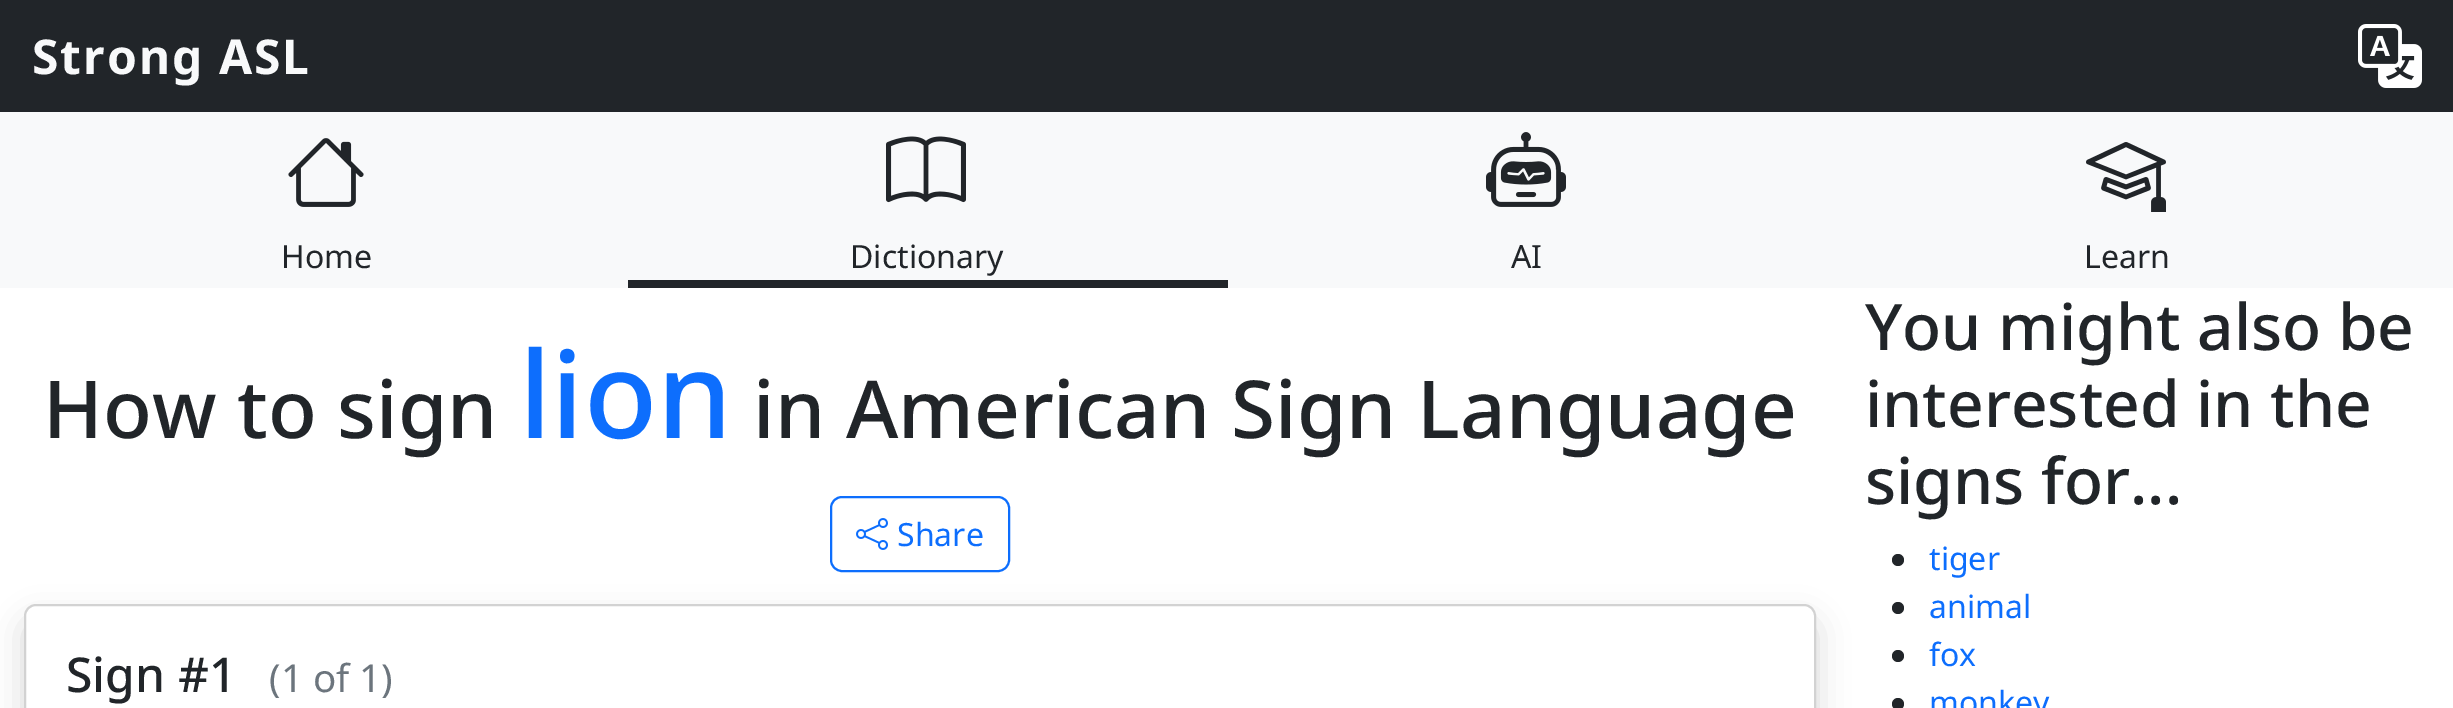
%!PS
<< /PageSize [2453 708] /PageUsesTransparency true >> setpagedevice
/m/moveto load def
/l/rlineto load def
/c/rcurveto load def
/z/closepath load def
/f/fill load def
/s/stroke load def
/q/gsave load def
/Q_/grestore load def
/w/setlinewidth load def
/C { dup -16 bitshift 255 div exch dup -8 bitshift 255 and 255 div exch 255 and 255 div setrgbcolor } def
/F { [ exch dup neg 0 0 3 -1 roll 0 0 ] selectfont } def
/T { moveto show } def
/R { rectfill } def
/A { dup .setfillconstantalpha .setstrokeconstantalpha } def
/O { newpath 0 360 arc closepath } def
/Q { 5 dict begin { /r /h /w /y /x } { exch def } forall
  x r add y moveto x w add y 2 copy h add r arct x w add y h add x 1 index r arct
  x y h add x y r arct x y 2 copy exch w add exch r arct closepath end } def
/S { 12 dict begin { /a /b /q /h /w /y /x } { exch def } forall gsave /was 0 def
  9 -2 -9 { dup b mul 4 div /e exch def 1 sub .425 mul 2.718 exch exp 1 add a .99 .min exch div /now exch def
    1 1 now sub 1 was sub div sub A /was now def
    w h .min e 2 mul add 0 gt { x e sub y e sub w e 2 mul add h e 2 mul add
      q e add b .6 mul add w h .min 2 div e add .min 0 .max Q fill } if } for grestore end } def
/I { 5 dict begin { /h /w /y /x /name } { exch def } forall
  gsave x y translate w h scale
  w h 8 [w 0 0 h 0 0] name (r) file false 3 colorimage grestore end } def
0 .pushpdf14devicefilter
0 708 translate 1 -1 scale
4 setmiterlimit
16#FFFFFF C
0 0 2453 708 R
16#212529 C
0 0 2453 112 R
/NotoSans-Bold 48 F
16#F8F9FA C
32 74 m 2 0 (Strong ASL) ashow
(1.rgb) 2358 24 64 64 I
0 112 2453 176 R
(2.rgb) 288 138 76 69 I
/NotoSans-Regular 32 F
16#212529 C
(Home) 281 268 T
628 280 600 8 R
(3.rgb) 886 136 80 67 I
(Dictionary) 850 268 T
(4.rgb) 1486 132 80 75 I
(AI) 1511 268 T
(5.rgb) 2086 142 80 70 I
(Learn) 2084 268 T
/NotoSans-Medium 80 F
(How to sign) 43 438 T
/NotoSans-Medium 120 F
16#0D6EFD C
(lion) 519 438 T
/NotoSans-Medium 80 F
16#212529 C
(in American Sign Language) 753 438 T
16#0D6EFD C
2 w
831 497 178 74 11 Q s
(6.rgb) 856 518 32 32 I
/NotoSans-Regular 32 F
(Share) 897 546 T
q
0 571 m 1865 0 l 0 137 l -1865 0 l z 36 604 m 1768 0 l 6.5 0 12 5.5 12 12 c 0 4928 l 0 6.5 -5.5 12 -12 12 c -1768 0 l -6.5 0 -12 -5.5 -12 -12 c 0 -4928 l 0 -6.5 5.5 -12 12 -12 c z eoclip newpath
16#000000 C
24 620 1792 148 12 16 .15 S
Q_
16#D2D2D2 C
25 605 1790 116 11 Q s
/NotoSans-Medium 48 F
16#212529 C
(Sign #1) 66 692 T
/NotoSans-Regular 38.5 F
16#6C757D C
(\(1 of 1\)) 269 692 T
/NotoSans-Medium 64 F
16#212529 C
(You might also be) 1865 350 T
(interested in the) 1865 427 T
(signs for...) 1865 504 T
1898 560 6 O f
/NotoSans-Regular 32 F
16#0D6EFD C
(tiger) 1929 570 T
16#212529 C
1898 608 6 O f
16#0D6EFD C
(animal) 1929 618 T
16#212529 C
1898 656 6 O f
16#0D6EFD C
(fox) 1929 666 T
16#212529 C
1898 704 6 O f
16#0D6EFD C
(monkey) 1929 714 T
.poppdf14devicefilter showpage
